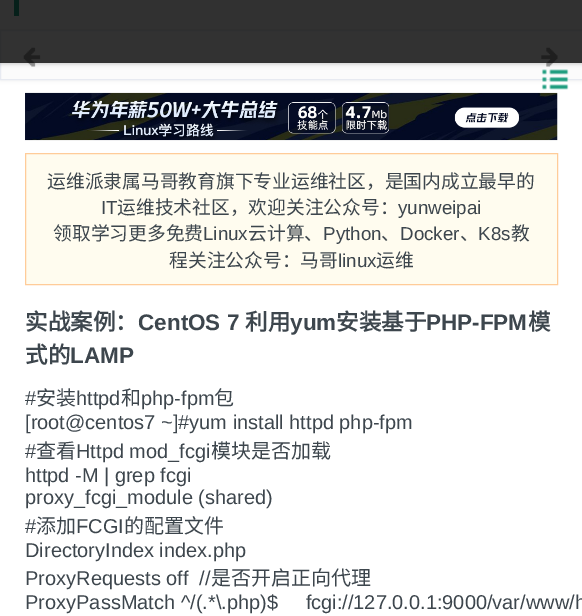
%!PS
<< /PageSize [582 616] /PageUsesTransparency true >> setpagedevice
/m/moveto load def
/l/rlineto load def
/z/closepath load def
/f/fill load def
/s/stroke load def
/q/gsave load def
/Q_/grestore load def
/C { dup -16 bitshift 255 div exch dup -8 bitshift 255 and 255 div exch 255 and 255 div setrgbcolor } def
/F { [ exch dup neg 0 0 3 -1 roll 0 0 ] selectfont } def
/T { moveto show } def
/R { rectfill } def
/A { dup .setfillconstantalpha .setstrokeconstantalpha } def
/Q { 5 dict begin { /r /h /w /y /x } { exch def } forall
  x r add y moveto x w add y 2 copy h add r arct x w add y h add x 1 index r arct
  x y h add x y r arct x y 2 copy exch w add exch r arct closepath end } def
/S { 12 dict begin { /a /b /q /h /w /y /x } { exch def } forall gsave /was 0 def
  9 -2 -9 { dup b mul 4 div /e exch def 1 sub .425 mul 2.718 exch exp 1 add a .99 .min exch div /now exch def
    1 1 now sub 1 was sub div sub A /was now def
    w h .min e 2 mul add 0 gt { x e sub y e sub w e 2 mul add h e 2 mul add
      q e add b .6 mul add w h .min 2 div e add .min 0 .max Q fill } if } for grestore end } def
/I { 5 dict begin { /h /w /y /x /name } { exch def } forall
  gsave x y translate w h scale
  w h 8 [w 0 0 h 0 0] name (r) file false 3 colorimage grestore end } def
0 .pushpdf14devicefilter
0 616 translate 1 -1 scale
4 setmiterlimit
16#FFFFFF C
0 0 582 616 R
16#F5F5F5 C
0 0 582 29 R
16#EFEFEF C
0 29 582 1 R
16#209E80 C
14 0 5 16 R
16#002537 C
0 31 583 50 0 2 .05 S
16#FBFBFB C
.5 30.5 m 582 0 l 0 49 l -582 0 l z q f Q_
16#E7EAF1 C
s
(2.rgb) 23 47 18 20 I
(3.rgb) 541 47 17 20 I
q
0 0 m 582 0 l 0 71 l -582 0 l z 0 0 m 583 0 l 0 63 l -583 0 l z eoclip newpath
16#000000 C
0 1 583 63 0 2 .2 S
Q_
0.8 A
16#000000 C
0 0 582 63 R
1 A
(1.rgb) 541 69 28 21 I
(4.rgb) 25 92 533 49 I
16#FFFCEF C
25.5 153.5 m 532 0 l 0 131 l -532 0 l z q f Q_
16#FFCC99 C
s
/NotoSansCJKSC-Regular 18.75 F
16#3D464D C
(运维派隶属马哥教育旗下专业运维社区，是国内成立最早的) 47 188 T
/LiberationSans-Regular 18.75 F
(IT) 101 214 T
/NotoSansCJKSC-Regular 18.75 F
(运维技术社区，欢迎关注公众号：) 117 214 T
/LiberationSans-Regular 18.75 F
(yunweipai) 398 214 T
/NotoSansCJKSC-Regular 18.75 F
(领取学习更多免费) 53 240 T
/LiberationSans-Regular 18.75 F
(Linux) 203 240 T
/NotoSansCJKSC-Regular 18.75 F
(云计算、) 248 240 T
/LiberationSans-Regular 18.75 F
(Python) 323 240 T
/NotoSansCJKSC-Regular 18.75 F
(、) 381 240 T
/LiberationSans-Regular 18.75 F
(Docker) 400 240 T
/NotoSansCJKSC-Regular 18.75 F
(、) 460 240 T
/LiberationSans-Regular 18.75 F
(K8s) 478 240 T
/NotoSansCJKSC-Regular 18.75 F
(教) 511 240 T
(程关注公众号：马哥) 169 267 T
/LiberationSans-Regular 18.75 F
(linux) 338 267 T
/NotoSansCJKSC-Regular 18.75 F
(运维) 376 267 T
/NotoSansCJKSC-Bold 22.5 F
(实战案例：) 25 330 T
/LiberationSans-Bold 22.5 F
(CentOS 7) 138 330 T
/NotoSansCJKSC-Bold 22.5 F
(利用) 245 330 T
/LiberationSans-Bold 22.5 F
(yum) 290 330 T
/NotoSansCJKSC-Bold 22.5 F
(安装基于) 336 330 T
/LiberationSans-Bold 22.5 F
(PHP-FPM) 426 330 T
/NotoSansCJKSC-Bold 22.5 F
(模) 528 330 T
(式的) 25 363 T
/LiberationSans-Bold 22.5 F
(LAMP) 70 363 T
/LiberationSans-Regular 20 F
(#) 25 405 T
/NotoSansCJKSC-Regular 20 F
(安装) 36 405 T
/LiberationSans-Regular 20 F
(httpd) 76 405 T
/NotoSansCJKSC-Regular 20 F
(和) 121 405 T
/LiberationSans-Regular 20 F
(php-fpm) 141 405 T
/NotoSansCJKSC-Regular 20 F
(包) 214 405 T
/LiberationSans-Regular 20 F
([root@centos7 ~]#yum install httpd php-fpm) 25 429 T
(#) 25 458 T
/NotoSansCJKSC-Regular 20 F
(查看) 36 458 T
/LiberationSans-Regular 20 F
(Httpd mod_fcgi) 76 458 T
/NotoSansCJKSC-Regular 20 F
(模块是否加载) 211 458 T
/LiberationSans-Regular 20 F
(httpd -M | grep fcgi) 25 482 T
(proxy_fcgi_module \(shared\)) 25 504 T
(#) 25 533 T
/NotoSansCJKSC-Regular 20 F
(添加) 36 533 T
/LiberationSans-Regular 20 F
(FCGI) 76 533 T
/NotoSansCJKSC-Regular 20 F
(的配置文件) 124 533 T
/LiberationSans-Regular 20 F
(DirectoryIndex index.php) 25 557 T
(ProxyRequests off  //) 25 585 T
/NotoSansCJKSC-Regular 20 F
(是否开启正向代理) 211 585 T
/LiberationSans-Regular 20 F
(ProxyPassMatch ^/\(.*\\.php\)$     fcgi://127.0.0.1:9000/var/www/h) 25 609 T
.poppdf14devicefilter showpage
